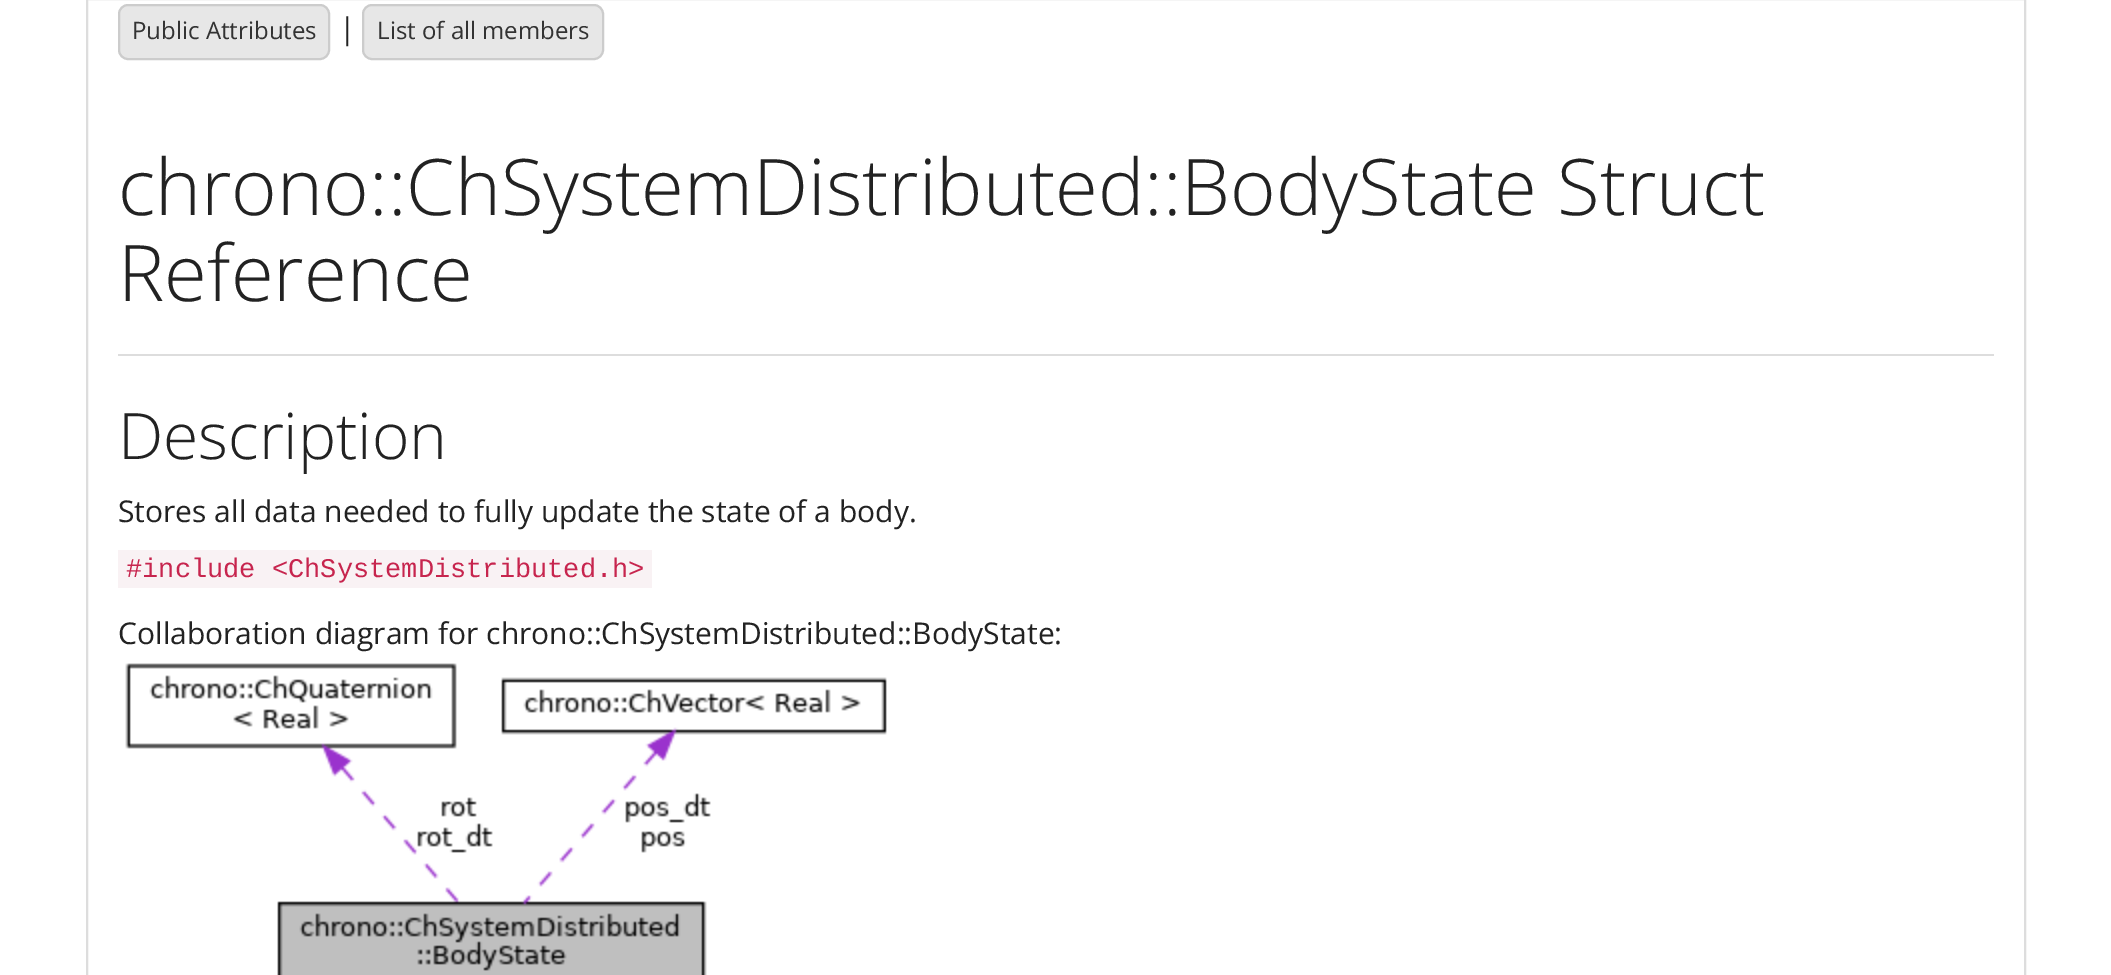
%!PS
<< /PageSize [2111 975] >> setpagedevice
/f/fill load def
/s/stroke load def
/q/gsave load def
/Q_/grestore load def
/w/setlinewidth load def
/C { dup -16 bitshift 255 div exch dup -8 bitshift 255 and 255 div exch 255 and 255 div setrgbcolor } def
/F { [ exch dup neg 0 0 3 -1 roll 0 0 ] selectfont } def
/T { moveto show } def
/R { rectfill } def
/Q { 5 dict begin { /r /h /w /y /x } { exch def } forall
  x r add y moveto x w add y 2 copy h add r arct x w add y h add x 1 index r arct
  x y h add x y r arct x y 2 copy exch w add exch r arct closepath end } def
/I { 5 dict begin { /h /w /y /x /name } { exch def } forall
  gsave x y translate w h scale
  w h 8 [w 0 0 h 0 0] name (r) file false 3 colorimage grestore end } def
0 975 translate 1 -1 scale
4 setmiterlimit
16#FFFFFF C
0 0 2111 975 R
16#DDDDDD C
2 w
87 -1 1938 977 rectstroke
16#E7E7E7 C
119 5 210 54 9 Q q f Q_
16#CCCCCC C
s
/OpenSans-Regular 24 F
16#333333 C
(Public Attributes) 132 39 T
/OpenSans-Regular 30 F
16#222222 C
(|) 339 39 T
16#E7E7E7 C
363 5 240 54 9 Q q f Q_
16#CCCCCC C
s
/OpenSans-Regular 24 F
16#333333 C
(List of all members) 377 39 T
16#DDDDDD C
118 354 1876 2 R
/OpenSans-Light 78 F
16#222222 C
(chrono::ChSystemDistributed::BodyState Struct) 118 215 T
(Reference) 118 301 T
/OpenSans-Light 64 F
(Description) 118 459 T
/OpenSans-Regular 30 F
(Stores all data needed to fully update the state of a body.) 118 522 T
16#F9F2F4 C
118 550 534 38 R
/LiberationMono-Regular 27 F
16#C7254E C
(#include <ChSystemDistributed.h>) 126 577 T
/OpenSans-Regular 30 F
16#222222 C
(Collaboration diagram for chrono::ChSystemDistributed::BodyState:) 118 644 T
(1.rgb) 125 663 762 312 I
showpage
